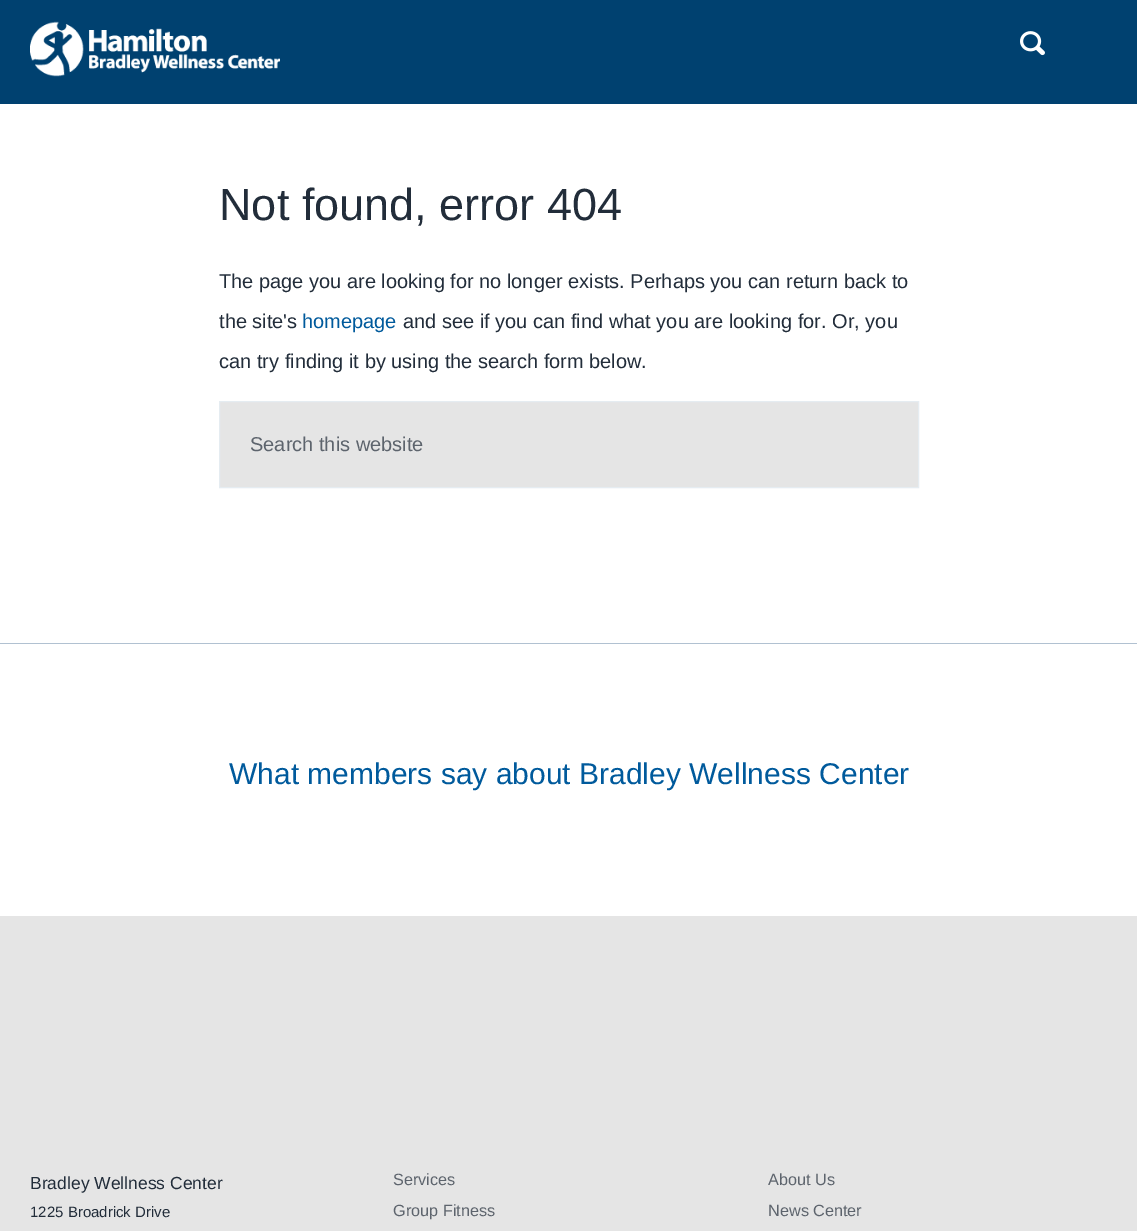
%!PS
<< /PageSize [1137 1231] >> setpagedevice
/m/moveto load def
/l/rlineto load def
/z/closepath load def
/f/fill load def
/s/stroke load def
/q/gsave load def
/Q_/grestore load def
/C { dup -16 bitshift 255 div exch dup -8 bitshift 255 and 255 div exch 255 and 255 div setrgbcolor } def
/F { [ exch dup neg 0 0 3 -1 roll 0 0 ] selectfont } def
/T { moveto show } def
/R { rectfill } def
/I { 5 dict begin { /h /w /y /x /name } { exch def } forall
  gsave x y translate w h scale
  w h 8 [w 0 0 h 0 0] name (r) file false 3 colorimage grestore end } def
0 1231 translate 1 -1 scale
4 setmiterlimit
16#FFFFFF C
0 0 1137 1231 R
16#004170 C
0 0 1137 104 R
(1.rgb) 30 21 250 56 I
(2.rgb) 1020 31 25 25 I
/LiberationSans-Regular 45 F
16#222D3A C
(Not found, error 404) 219 220 T
/LiberationSans-Regular 20 F
(The page you are looking for no longer exists. Perhaps you can return back to) 219 288 T
(the site's) 219 328 T
16#005A9C C
(homepage) 302 328 T
16#222D3A C
(and see if you can find what you are looking for. Or, you) 403 328 T
(can try finding it by using the search form below.) 219 368 T
16#E5E5E5 C
219.5 401.5 m 699 0 l 0 86 l -699 0 l z q f Q_
16#E5ECF1 C
s
16#5D646D C
(Search this website) 250 451 T
16#B1C1D1 C
0 643 1137 1 R
/LiberationSans-Regular 30 F
16#005A9C C
(What members say about Bradley Wellness Center) 229 784 T
16#E5E5E5 C
0 916 1137 315 R
/LiberationSans-Regular 17.5 F
16#222D3A C
(Bradley Wellness Center) 30 1189 T
/LiberationSans-Regular 15 F
(1225 Broadrick Drive) 30 1217 T
/LiberationSans-Regular 16.25 F
16#5D646D C
(Services) 393 1185 T
(Group Fitness) 393 1216 T
(About Us) 768 1185 T
(News Center) 768 1216 T
showpage
